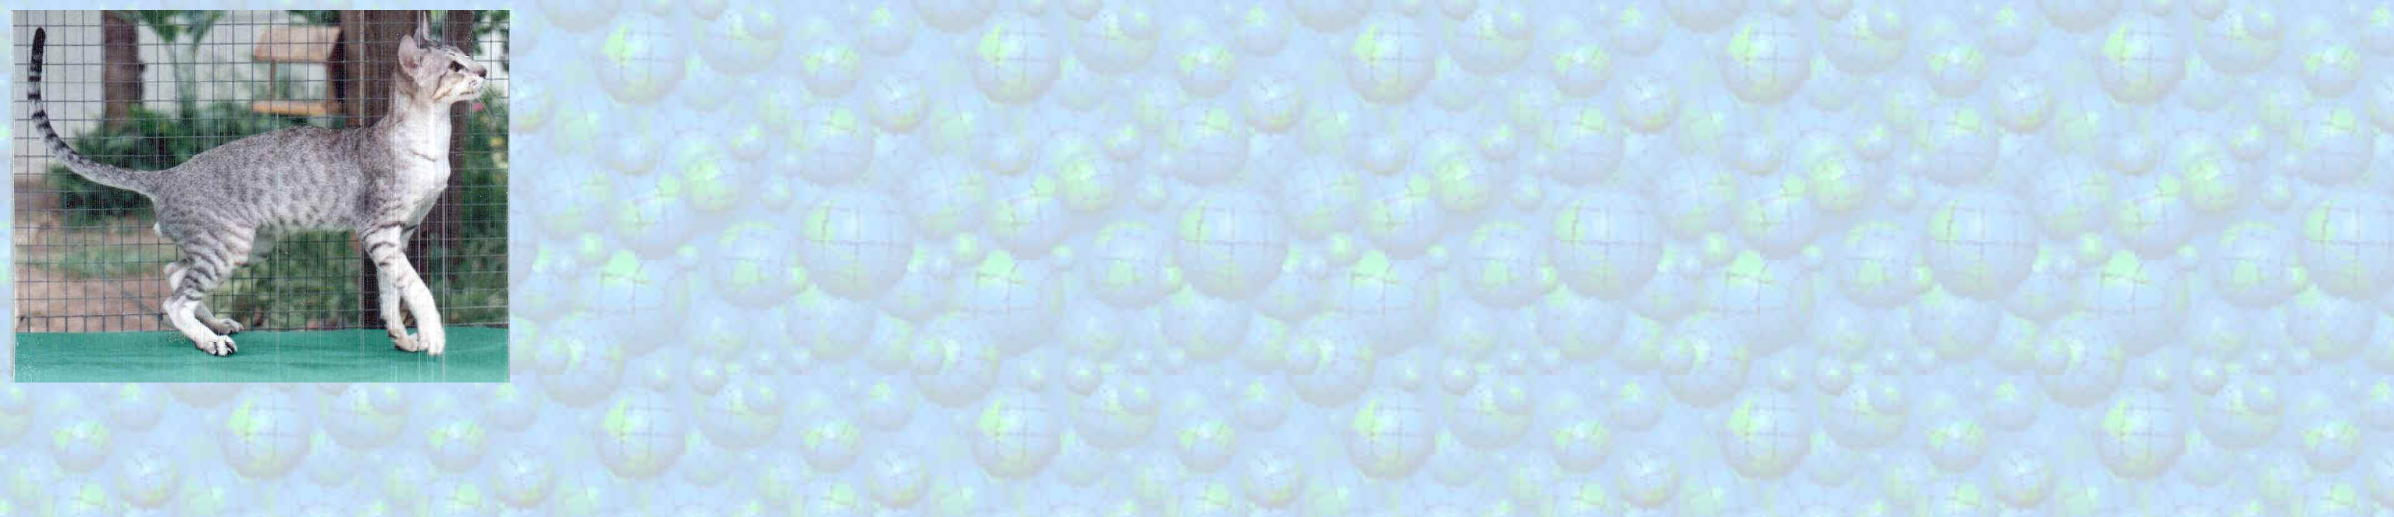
%!PS
<< /PageSize [2394 517] >> setpagedevice
/C { dup -16 bitshift 255 div exch dup -8 bitshift 255 and 255 div exch 255 and 255 div setrgbcolor } def
/R { rectfill } def
/I { 5 dict begin { /h /w /y /x /name } { exch def } forall
  gsave x y translate w h scale
  w h 8 [w 0 0 h 0 0] name (r) file false 3 colorimage grestore end } def
0 517 translate 1 -1 scale
4 setmiterlimit
16#FFFFFF C
0 0 2394 517 R
(1.rgb) 0 0 2394 517 I
(2.rgb) 10 10 500 373 I
showpage
